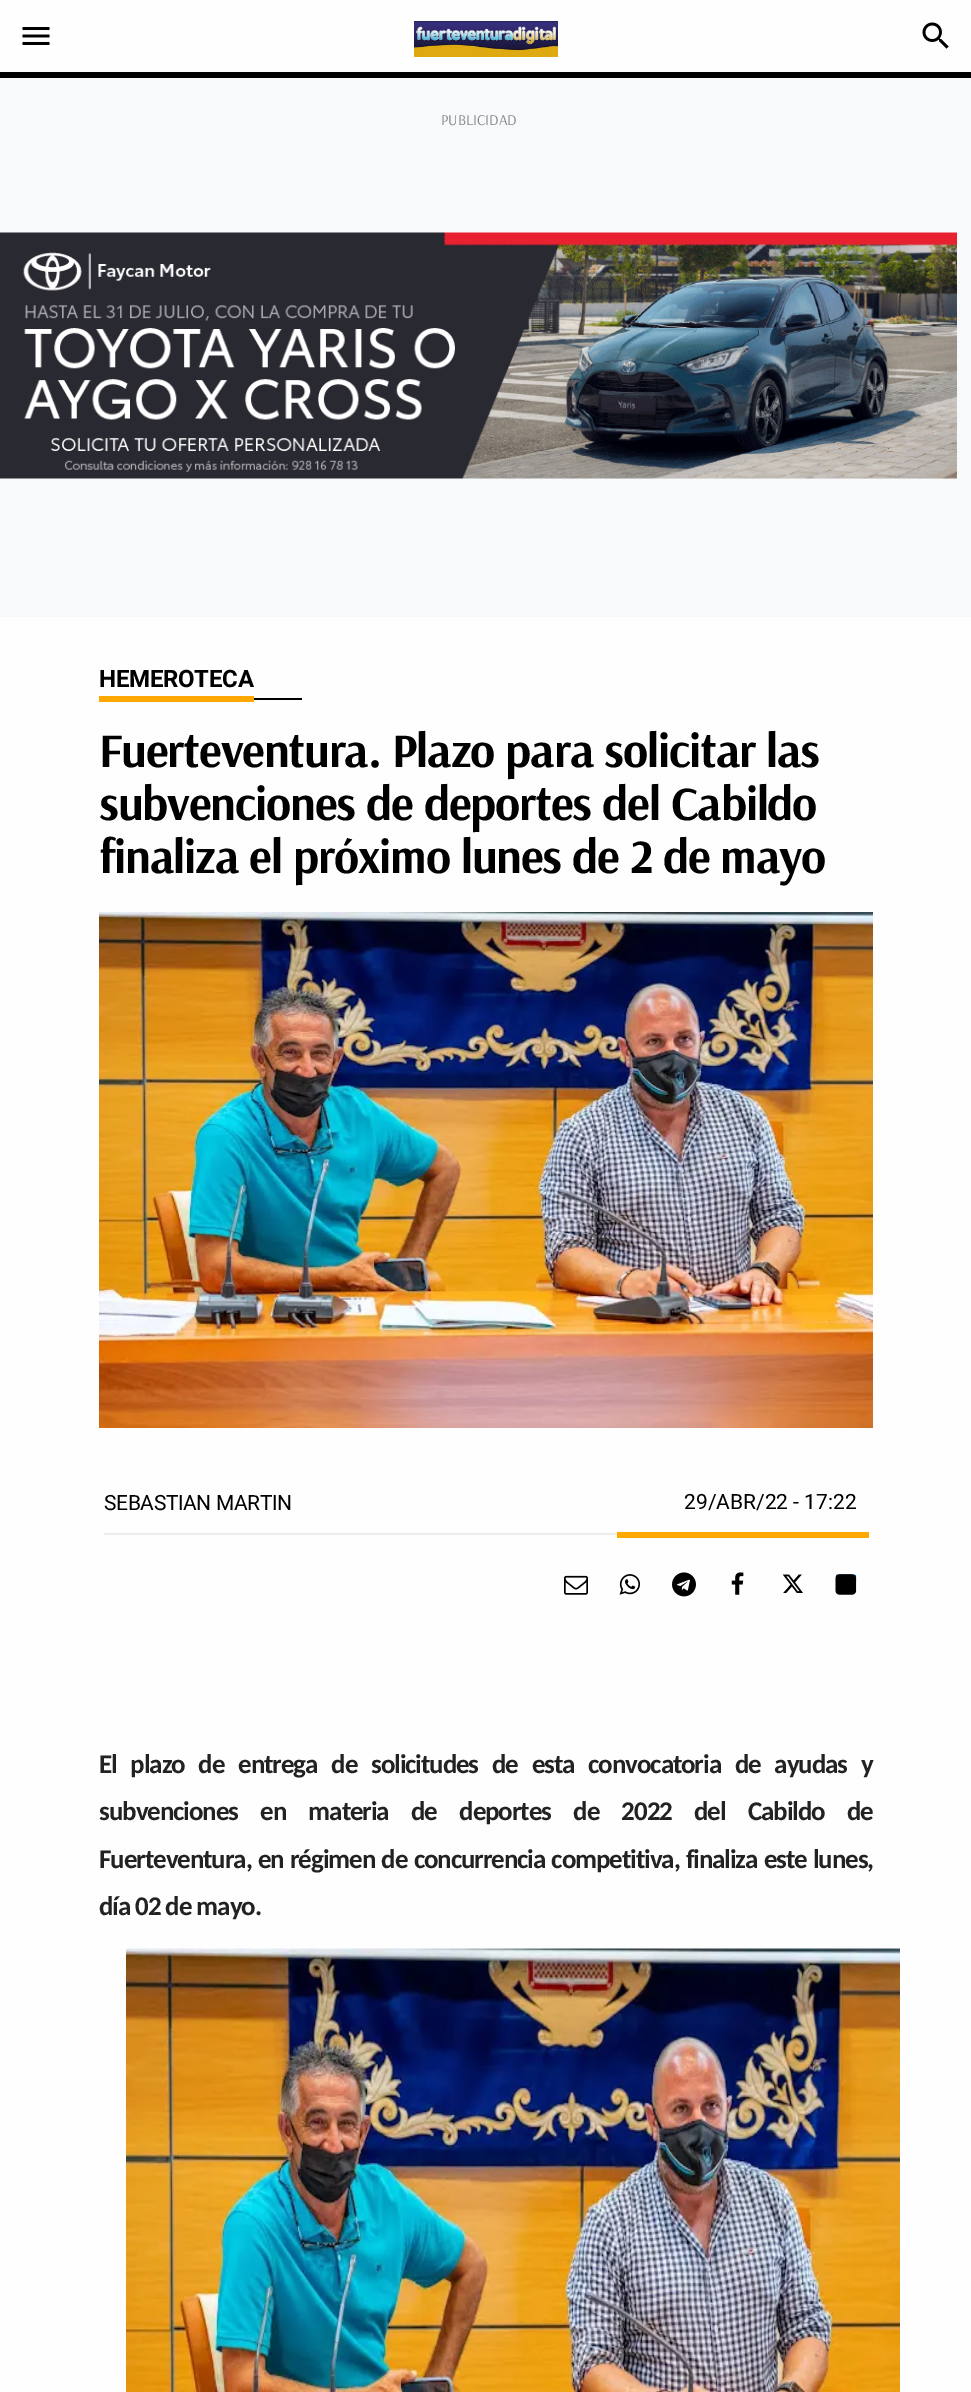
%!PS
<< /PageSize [971 2392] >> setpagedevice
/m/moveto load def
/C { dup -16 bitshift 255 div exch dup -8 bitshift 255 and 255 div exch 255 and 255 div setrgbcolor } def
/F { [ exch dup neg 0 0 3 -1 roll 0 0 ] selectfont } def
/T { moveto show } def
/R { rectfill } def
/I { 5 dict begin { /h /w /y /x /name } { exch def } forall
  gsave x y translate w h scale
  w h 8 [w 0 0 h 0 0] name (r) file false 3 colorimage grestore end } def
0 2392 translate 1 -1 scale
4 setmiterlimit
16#FEFEFE C
0 0 971 2392 R
16#000000 C
0 72 971 6 R
(1.rgb) 22 27 28 18 I
(2.rgb) 414 21 144 36 I
(3.rgb) 922 22 27 27 I
16#F8F9FA C
0 78 971 539 R
/Arsenal-Regular 15 F
16#838383 C
(PUBLICIDAD) 441 125 T
(4.rgb) 0 232 957 247 I
16#000000 C
254 698 48 2 R
16#FFA800 C
99 696 155 6 R
/Roboto-Bold 24 F
16#000000 C
99 687 m -.25 0 (HEMEROTECA) ashow
/Arsenal-Bold 48 F
99 767 m -1.2 0 (Fuerteventura. Plazo para solicitar las) ashow
99 820 m -1.2 0 (subvenciones de deportes del Cabildo) ashow
99 873 m -1.2 0 (finaliza el próximo lunes de 2 de mayo) ashow
(5.rgb) 99 912 774 516 I
16#EDEDED C
104 1533 513 2 R
/Roboto-Regular 21 F
16#000000 C
104 1510 m -.4 0 (SEBASTIAN MARTIN) ashow
(29/ABR/22 - 17:22) 684 1509 T
16#FFA800 C
617 1532 252 6 R
(6.rgb) 564 1575 24 20 I
(7.rgb) 619 1574 22 21 I
(8.rgb) 672 1572 24 25 I
(9.rgb) 731 1572 13 23 I
(10.rgb) 782 1574 21 19 I
(12.rgb) 836 1574 21 8 I
(11.rgb) 835 1574 22 21 I
/Carlito-Bold 27 F
16#222222 C
99 1773 m 8.75 0 32 -1.08 0 (El plazo de entrega de solicitudes de esta convocatoria de ayudas y) awidthshow
99 1820 m 17.25 0 32 -1.08 0 (subvenciones en materia de deportes de 2022 del Cabildo de) awidthshow
99 1868 m 1.25 0 32 -1.08 0 (Fuerteventura, en régimen de concurrencia competitiva, finaliza este lunes,) awidthshow
99 1915 m -1.08 0 (día 02 de mayo.) ashow
(13.rgb) 126 1948 774 444 I
showpage
